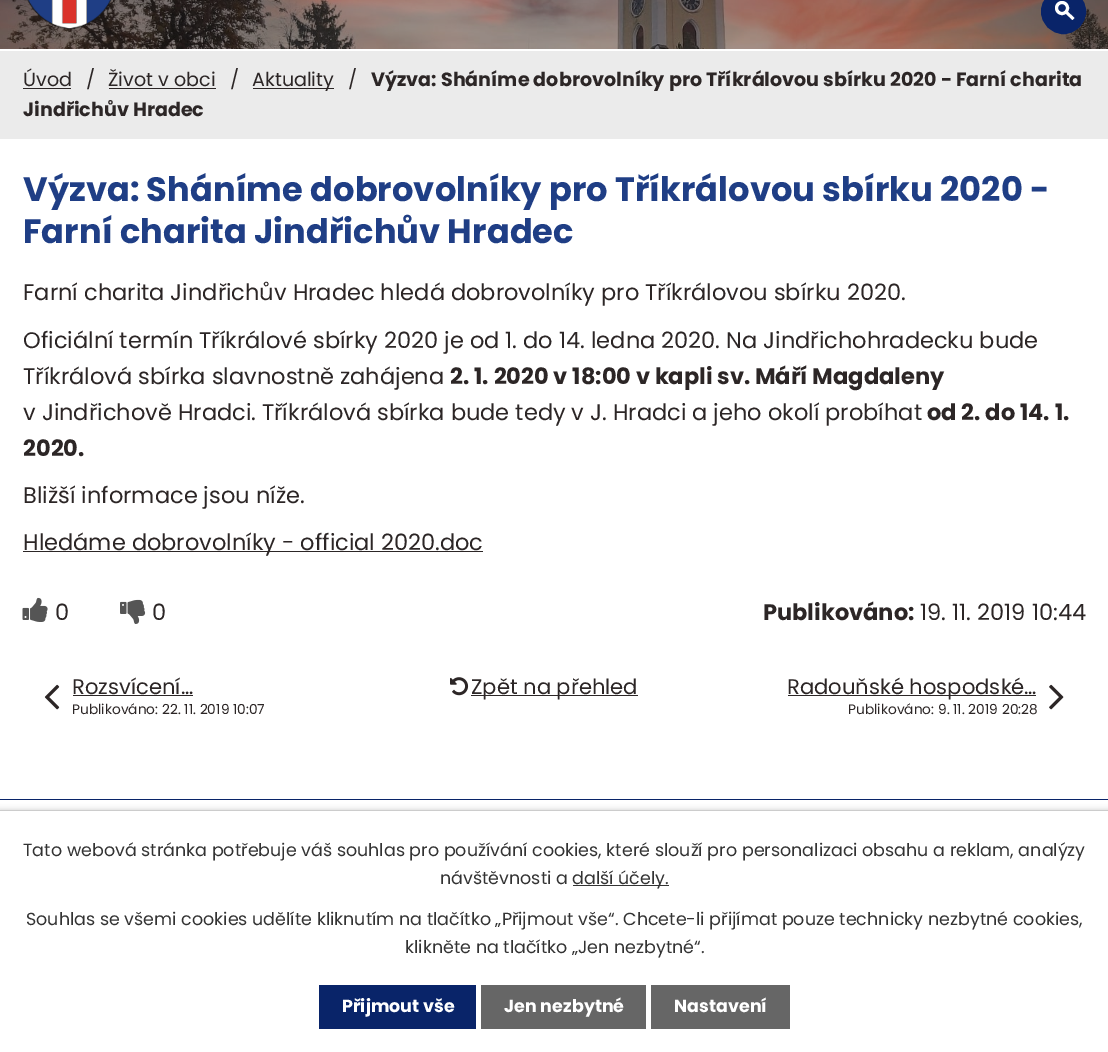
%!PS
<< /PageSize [1108 1052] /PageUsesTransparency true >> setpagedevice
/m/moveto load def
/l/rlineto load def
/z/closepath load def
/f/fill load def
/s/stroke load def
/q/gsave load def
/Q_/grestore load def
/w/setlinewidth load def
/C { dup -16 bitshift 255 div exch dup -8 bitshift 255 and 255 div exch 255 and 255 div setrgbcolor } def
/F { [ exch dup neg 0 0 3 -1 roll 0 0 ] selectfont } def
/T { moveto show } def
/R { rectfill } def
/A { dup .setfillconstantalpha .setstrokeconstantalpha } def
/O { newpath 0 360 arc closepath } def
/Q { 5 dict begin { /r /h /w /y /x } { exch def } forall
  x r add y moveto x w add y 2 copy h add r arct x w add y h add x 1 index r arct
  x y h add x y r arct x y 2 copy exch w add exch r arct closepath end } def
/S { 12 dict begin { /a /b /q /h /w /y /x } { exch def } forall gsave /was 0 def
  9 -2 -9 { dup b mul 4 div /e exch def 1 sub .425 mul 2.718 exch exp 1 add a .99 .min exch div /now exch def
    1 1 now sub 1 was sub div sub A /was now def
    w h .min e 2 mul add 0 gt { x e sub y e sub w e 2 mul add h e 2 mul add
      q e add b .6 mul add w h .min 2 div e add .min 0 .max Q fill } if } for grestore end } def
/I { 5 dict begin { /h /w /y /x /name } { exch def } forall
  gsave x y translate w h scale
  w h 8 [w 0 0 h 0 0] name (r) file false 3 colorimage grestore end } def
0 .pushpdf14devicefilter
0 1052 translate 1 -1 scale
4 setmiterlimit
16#FFFFFF C
0 0 1108 1052 R
(2.rgb) 0 0 1108 49 I
(1.rgb) 27 0 85 29 I
16#092469 C
1063.5 11.5 22 O q f Q_
s
16#FFFFFF C
3 w
1062 8 5.5 O s
1067 11 m 7.5 7 l -2 2 l -7.5 -7 l z f
16#EBEBEB C
0 51 1108 88 R
/Poppins-Regular 19.1 F
16#2C2626 C
(Úvod) 23 86 T
23 88 48 1 R
(/) 86 86 T
(Život v obci) 108 86 T
109 88 107 1 R
(/) 230 86 T
253 88 81 1 R
(Aktuality) 252 86 T
(/) 348 86 T
/Poppins-Bold 19.1 F
(Výzva: Sháníme dobrovolníky pro Tříkrálovou sbírku 2020 - Farní charita) 371 86 T
(Jindřichův Hradec) 23 116 T
/Poppins-Bold 33.75 F
16#1F3E85 C
(Výzva: Sháníme dobrovolníky pro Tříkrálovou sbírku 2020 -) 23 201 T
(Farní charita Jindřichův Hradec) 23 243 T
/Poppins-Regular 22.5 F
16#2C2626 C
(Farní charita Jindřichův Hradec hledá dobrovolníky pro Tříkrálovou sbírku 2020.) 23 300 T
(Oficiální termín Tříkrálové sbírky 2020 je od 1. do 14. ledna 2020. Na Jindřichohradecku bude) 23 348 T
(Tříkrálová sbírka slavnostně zahájena) 23 384 T
/Poppins-Bold 22.5 F
(2. 1. 2020 v 18:00 v kapli sv. Máří Magdaleny) 450 384 T
/Poppins-Regular 22.5 F
(v Jindřichově Hradci. Tříkrálová sbírka bude tedy v J. Hradci a jeho okolí probíhat) 23 420 T
/Poppins-Bold 22.5 F
(od 2. do 14. 1.) 927 420 T
(2020.) 23 456 T
/Poppins-Regular 22.5 F
(Bližší informace jsou níže.) 23 503 T
23 551 460 1 R
(Hledáme dobrovolníky - official 2020.doc) 23 550 T
(3.rgb) 22 597 26 25 I
(0) 55 620 T
(4.rgb) 120 599 26 25 I
(0) 152 620 T
/Poppins-Bold 22.5 F
(Publikováno:) 763 620 T
/Poppins-Regular 22.5 F
(19. 11. 2019 10:44) 920 620 T
(5.rgb) 44 684 16 26 I
/Poppins-Regular 21.1 F
(Rozsvícení…) 72 694 T
73 695 120 1 R
/Poppins-Regular 13.75 F
(Publikováno: 22. 11. 2019 10:07) 72 714 T
(6.rgb) 450 677 19 19 I
471 695 167 1 R
/Poppins-Regular 21.1 F
(Zpět na přehled) 471 694 T
788 695 248 1 R
(Radouňské hospodské…) 787 694 T
/Poppins-Regular 13.75 F
(Publikováno: 9. 11. 2019 20:28) 848 714 T
(7.rgb) 1049 684 15 26 I
16#092469 C
0 799 1108 1 R
16#000000 C
0 810 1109 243 0 3 .2 S
16#FFFFFF C
0 811 1108 241 R
16#CCCCCC C
0 810 1108 1 R
/Poppins-Regular 17.5 F
16#333333 C
(Tato webová stránka potřebuje váš souhlas pro používání cookies, které slouží pro personalizaci obsahu a reklam, analýzy) 23 856 T
(návštěvnosti a) 440 884 T
573 885 96 1 R
(další účely.) 572 884 T
(Souhlas se všemi cookies udělíte kliknutím na tlačítko „Přijmout vše“. Chcete-li přijímat pouze technicky nezbytné cookies,) 26 925 T
(klikněte na tlačítko „Jen nezbytné“.) 405 953 T
16#092469 C
319 985 157 44 R
/Poppins-Bold 17.5 F
16#FFFFFF C
(Přijmout vše) 342 1012 T
16#666666 C
481 985 165 44 R
16#FFFFFF C
(Jen nezbytné) 504 1012 T
16#666666 C
651 985 139 44 R
16#FFFFFF C
(Nastavení) 674 1012 T
.poppdf14devicefilter showpage
